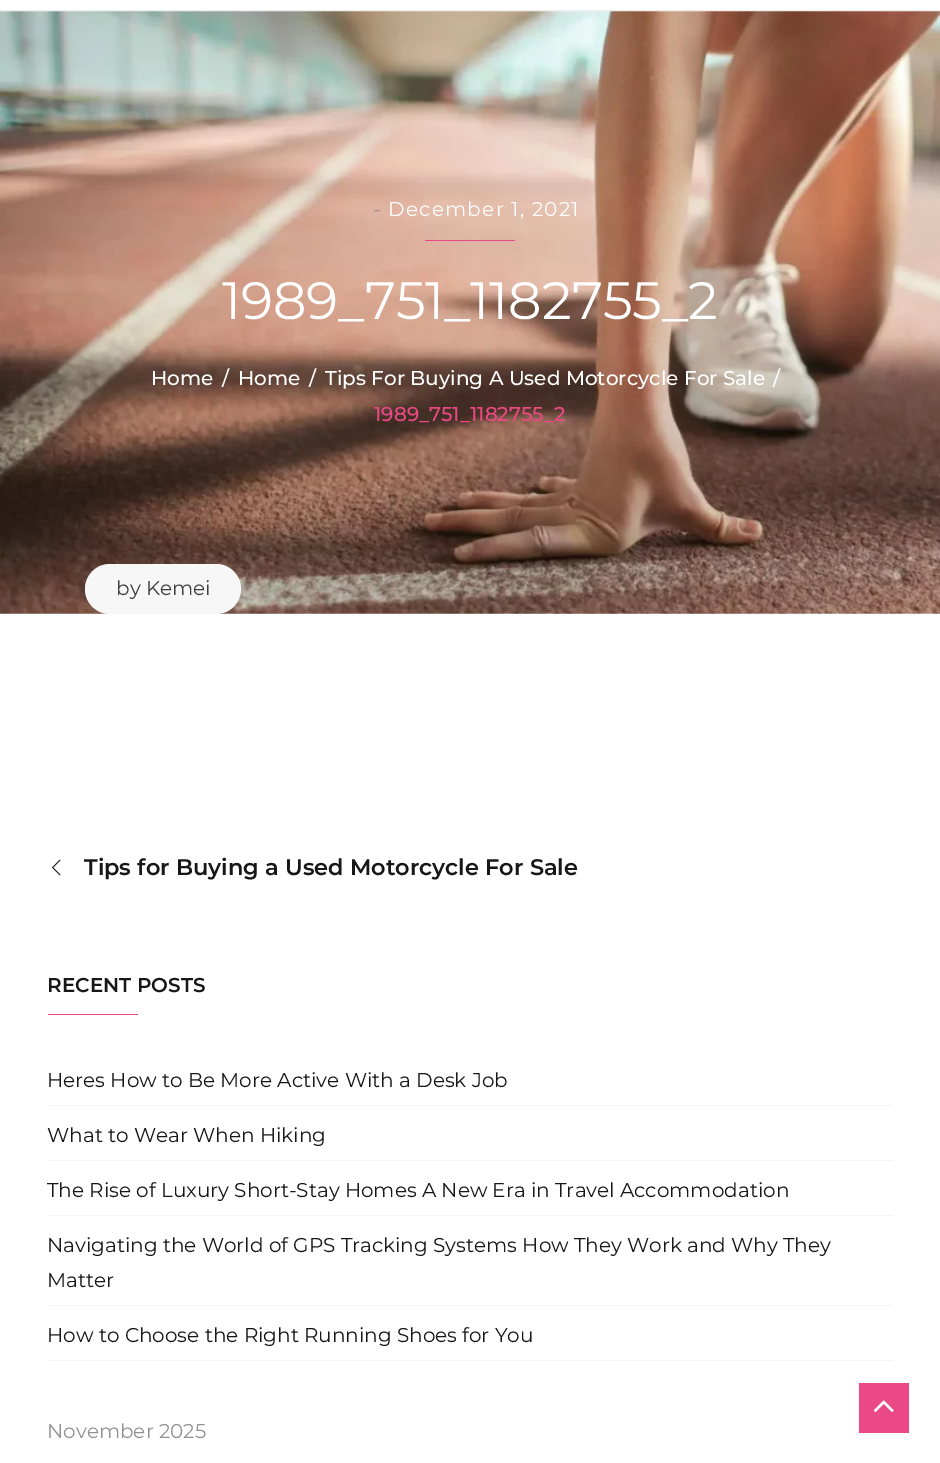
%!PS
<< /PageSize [940 1463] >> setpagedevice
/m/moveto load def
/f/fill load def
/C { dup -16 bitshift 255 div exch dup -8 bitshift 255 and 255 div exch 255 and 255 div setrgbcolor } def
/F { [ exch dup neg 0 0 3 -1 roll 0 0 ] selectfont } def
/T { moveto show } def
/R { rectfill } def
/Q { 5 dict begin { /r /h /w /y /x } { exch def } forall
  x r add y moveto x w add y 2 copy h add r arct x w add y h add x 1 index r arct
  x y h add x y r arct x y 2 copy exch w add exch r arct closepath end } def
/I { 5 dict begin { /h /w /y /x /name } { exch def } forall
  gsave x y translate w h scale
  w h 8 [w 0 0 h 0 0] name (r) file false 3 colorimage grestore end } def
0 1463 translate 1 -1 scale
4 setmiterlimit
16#FFFFFF C
0 0 940 1463 R
16#EEEEEE C
0 10 940 1 R
(1.rgb) 0 11 940 603 I
/Montserrat-Regular 20 F
16#929292 C
373 216 m 1.25 0 (-) ashow
16#FFFFFF C
388 216 m 1.25 0 (December 1, 2021) ashow
16#EB4986 C
425 240 90 1 R
/Montserrat-Regular 52.5 F
16#FFFFFF C
(1989_751_1182755_2) 222 319 T
/Montserrat-Medium 20 F
(Home) 151 385 T
(/) 222 385 T
(Home) 238 385 T
(/) 309 385 T
(Tips For Buying A Used Motorcycle For Sale) 325 385 T
(/) 773 385 T
16#EB4986 C
(1989_751_1182755_2) 374 421 T
16#F7F7F7 C
85 564 156 50 25 Q f
/Montserrat-Regular 20 F
16#3F3F3F C
(by Kemei) 116 595 T
(2.rgb) 52 859 9 17 I
/Montserrat-SemiBold 22.5 F
16#171717 C
(Tips for Buying a Used Motorcycle For Sale) 84 875 T
/Montserrat-SemiBold 20 F
(RECENT POSTS) 47 992 T
16#EB4986 C
48 1014 90 1 R
16#F5F5F5 C
48 1105 845 1 R
/Montserrat-Regular 20 F
16#171717 C
(Heres How to Be More Active With a Desk Job) 47 1087 T
16#F5F5F5 C
48 1160 845 1 R
16#171717 C
(What to Wear When Hiking) 47 1142 T
16#F5F5F5 C
48 1215 845 1 R
16#171717 C
(The Rise of Luxury Short-Stay Homes A New Era in Travel Accommodation) 47 1197 T
16#F5F5F5 C
48 1305 845 1 R
16#171717 C
(Navigating the World of GPS Tracking Systems How They Work and Why They) 47 1252 T
(Matter) 47 1287 T
16#F5F5F5 C
48 1360 845 1 R
16#171717 C
(How to Choose the Right Running Shoes for You) 47 1342 T
16#929292 C
(November 2025) 47 1438 T
16#EB4986 C
859 1383 50 50 R
(3.rgb) 874 1400 20 12 I
showpage
